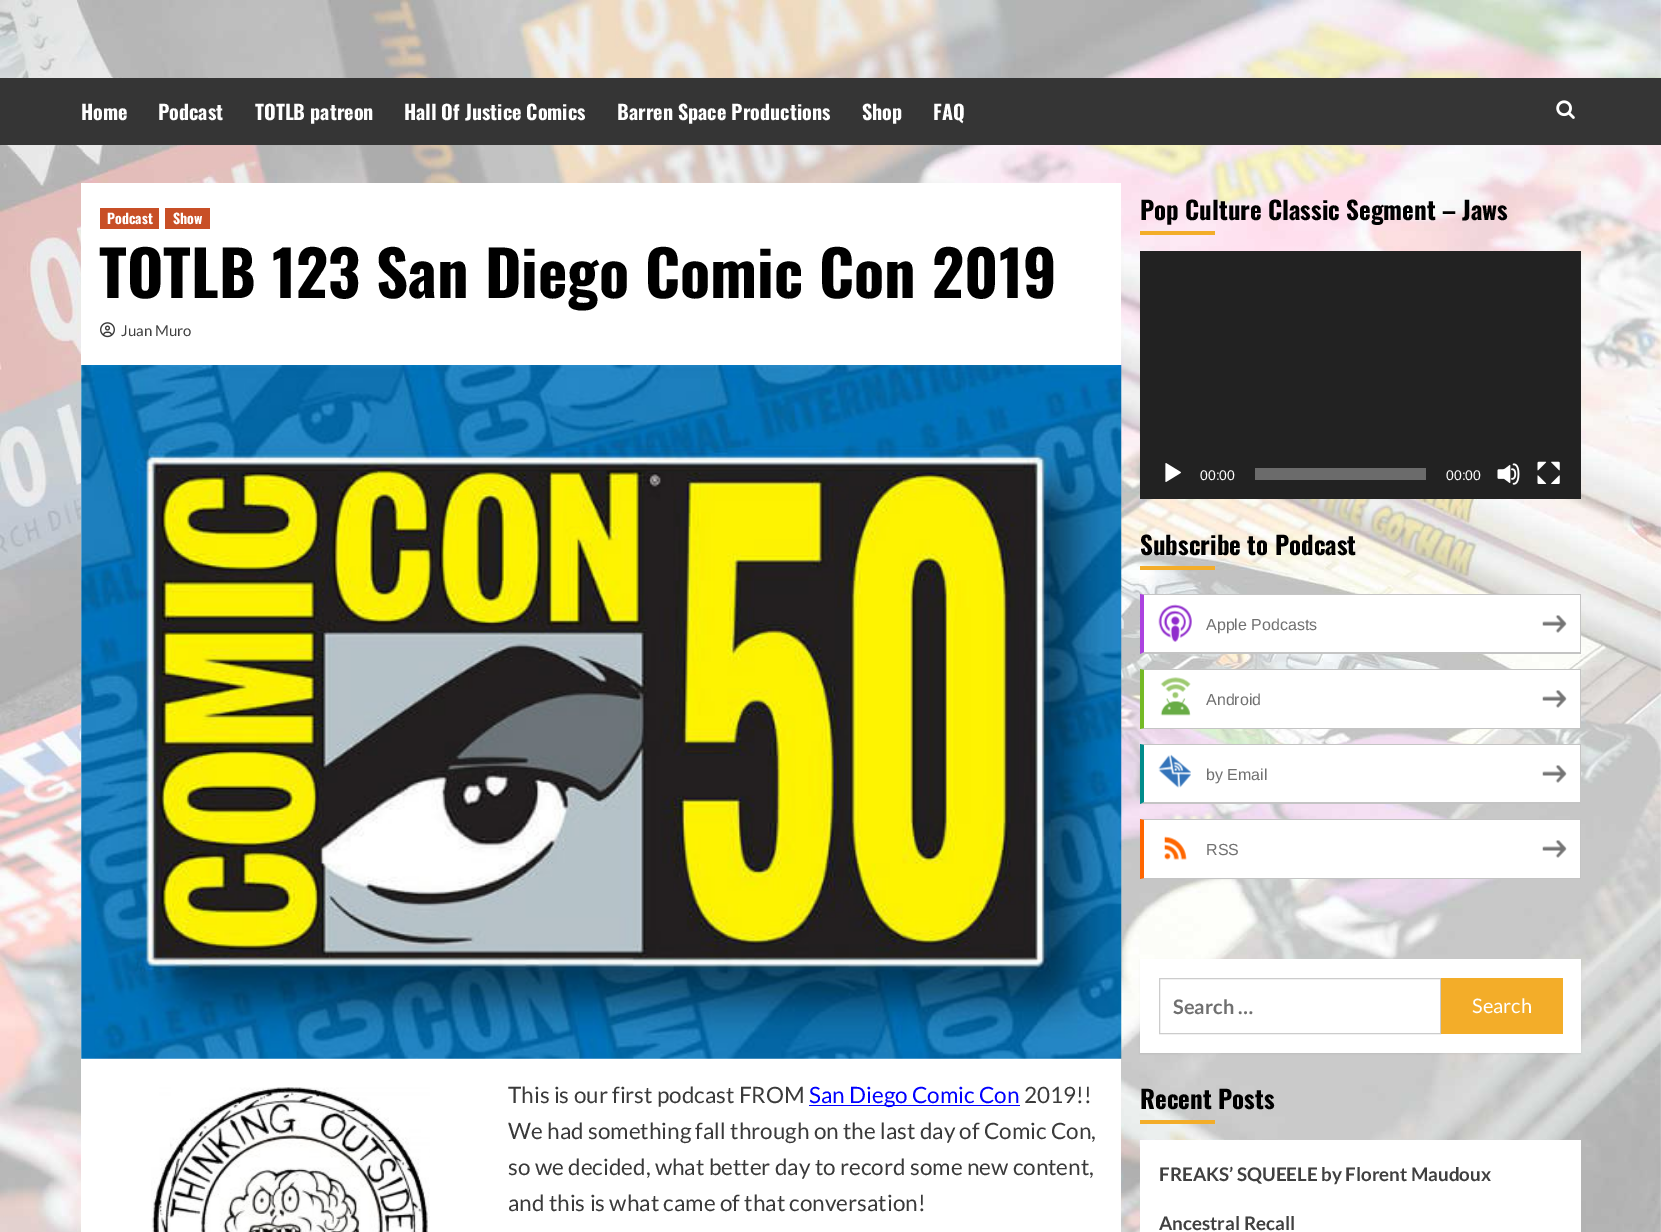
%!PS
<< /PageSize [1661 1232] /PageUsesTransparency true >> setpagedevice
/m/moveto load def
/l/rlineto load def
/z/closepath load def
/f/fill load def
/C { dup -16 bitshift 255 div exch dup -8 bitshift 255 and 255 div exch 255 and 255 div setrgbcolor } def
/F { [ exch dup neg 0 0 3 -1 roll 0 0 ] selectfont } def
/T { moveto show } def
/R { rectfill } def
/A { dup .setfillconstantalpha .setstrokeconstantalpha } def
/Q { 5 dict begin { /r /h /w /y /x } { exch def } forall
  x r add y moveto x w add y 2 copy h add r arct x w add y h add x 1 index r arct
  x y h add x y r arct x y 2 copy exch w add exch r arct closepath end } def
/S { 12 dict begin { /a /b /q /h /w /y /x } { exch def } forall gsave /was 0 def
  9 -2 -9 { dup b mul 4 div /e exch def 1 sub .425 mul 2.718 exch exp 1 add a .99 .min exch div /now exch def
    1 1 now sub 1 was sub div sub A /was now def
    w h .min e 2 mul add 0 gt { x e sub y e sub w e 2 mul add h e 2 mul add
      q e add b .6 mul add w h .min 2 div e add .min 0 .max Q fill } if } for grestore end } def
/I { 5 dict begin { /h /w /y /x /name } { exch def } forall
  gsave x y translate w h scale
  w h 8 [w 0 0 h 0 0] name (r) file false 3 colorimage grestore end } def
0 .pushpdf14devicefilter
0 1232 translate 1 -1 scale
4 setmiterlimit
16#FFFFFF C
0 0 1661 1232 R
(1.rgb) 0 0 1661 1232 I
16#353535 C
0 78 1661 67 R
/Oswald-Bold 20 F
16#FFFFFF C
(Home) 81 120 T
(Podcast) 158 120 T
(TOTLB patreon) 255 120 T
(Hall Of Justice Comics) 404 120 T
(Barren Space Productions) 617 120 T
(Shop) 862 120 T
(FAQ) 933 120 T
(2.rgb) 1556 100 19 19 I
81 183 1040 1049 R
16#C84F26 C
100 208 59 21 R
/Oswald-Bold 14 F
16#FFFFFF C
(Podcast) 107 224 T
16#C84F26 C
165 208 45 21 R
16#FFFFFF C
(Show) 173 224 T
/Oswald-Bold 62.5 F
16#000000 C
(TOTLB 123 San Diego Comic Con 2019) 99 298 T
(3.rgb) 100 322 15 16 I
/Lato-Regular 15 F
16#404040 C
(Juan Muro) 121 336 T
(4.rgb) 81 365 1041 694 I
(5.rgb) 151 1087 279 145 I
/Lato-Regular 22.5 F
16#3A3A3A C
(This is our first podcast FROM) 508 1103 T
16#0000FF C
809 1105 211 1 R
(San Diego Comic Con) 809 1103 T
16#3A3A3A C
(2019!!) 1024 1103 T
(We had something fall through on the last day of Comic Con,) 508 1139 T
(so we decided, what better day to record some new content,) 508 1175 T
(and this is what came of that conversation!) 508 1211 T
/Oswald-Bold 25 F
16#000000 C
(Pop Culture Classic Segment – Jaws) 1140 220 T
16#F3AD29 C
1140 231 75 4 R
16#222222 C
1140 251 441 248 R
(6.rgb) 1165 463 16 19 I
/LiberationSans-Regular 14 F
16#FFFFFF C
(00:00) 1200 480 T
16#6B6B6B C
1255 468 171 12 R
16#FFFFFF C
(00:00) 1446 480 T
(7.rgb) 1497 463 23 22 I
(8.rgb) 1537 461 23 23 I
/Oswald-Bold 25 F
16#000000 C
(Subscribe to Podcast) 1140 555 T
16#F3AD29 C
1140 566 75 4 R
16#FFFFFF C
1144 595 436 57 R
16#C4C4C4 C
1140 594 m 441 0 l -1 1 l -436 0 l z f
1580 594 1 60 R
1581 654 m -441 0 l 4 -2 l 436 0 l z f
16#AB42DF C
1140 654 m 0 -60 l 4 1 l 0 57 l z f
(9.rgb) 1158 604 34 38 I
/LiberationSans-Regular 16 F
16#707070 C
(Apple Podcasts) 1206 630 T
(10.rgb) 1542 615 25 18 I
16#FFFFFF C
1144 670 436 58 R
16#C4C4C4 C
1140 669 m 441 0 l -1 1 l -436 0 l z f
1580 669 1 60 R
1581 729 m -441 0 l 4 -1 l 436 0 l z f
16#75BA26 C
1140 729 m 0 -60 l 4 1 l 0 58 l z f
(11.rgb) 1160 677 31 39 I
16#707070 C
(Android) 1206 705 T
(10.rgb) 1542 690 25 18 I
16#FFFFFF C
1144 745 436 57 R
16#C4C4C4 C
1140 744 m 441 0 l -1 1 l -436 0 l z f
1580 744 1 41 R
1581 804 m -441 0 l 4 -2 l 436 0 l z f
16#018C8B C
1140 804 m 0 -60 l 4 1 l 0 57 l z f
(12.rgb) 1158 754 33 34 I
16#707070 C
(by Email) 1206 780 T
(10.rgb) 1542 765 25 18 I
16#FFFFFF C
1144 820 436 58 R
16#C4C4C4 C
1140 819 m 441 0 l -1 1 l -436 0 l z f
1580 819 1 60 R
1581 879 m -441 0 l 4 -1 l 436 0 l z f
16#FF6600 C
1140 879 m 0 -60 l 4 1 l 0 58 l z f
(13.rgb) 1164 836 23 24 I
16#707070 C
(RSS) 1206 855 T
(10.rgb) 1542 840 25 18 I
16#000000 C
1140 960 441 94 0 1 .05 S
16#FFFFFF C
1140 959 441 94 R
16#CCCCCC C
1159.5 978.5 281 55 rectstroke
/Lato-Bold 20 F
16#707070 C
(Search …) 1173 1014 T
16#F3AD29 C
1441 978 122 56 R
/Lato-Regular 20 F
16#FFFFFF C
(Search) 1472 1013 T
/Oswald-Bold 25 F
16#000000 C
(Recent Posts) 1140 1109 T
16#F3AD29 C
1140 1120 75 4 R
16#FFFFFF C
1140 1140 441 92 R
/Lato-Bold 18.75 F
16#404040 C
(FREAKS’ SQUEELE by Florent Maudoux) 1159 1181 T
(Ancestral Recall) 1159 1230 T
.poppdf14devicefilter showpage
